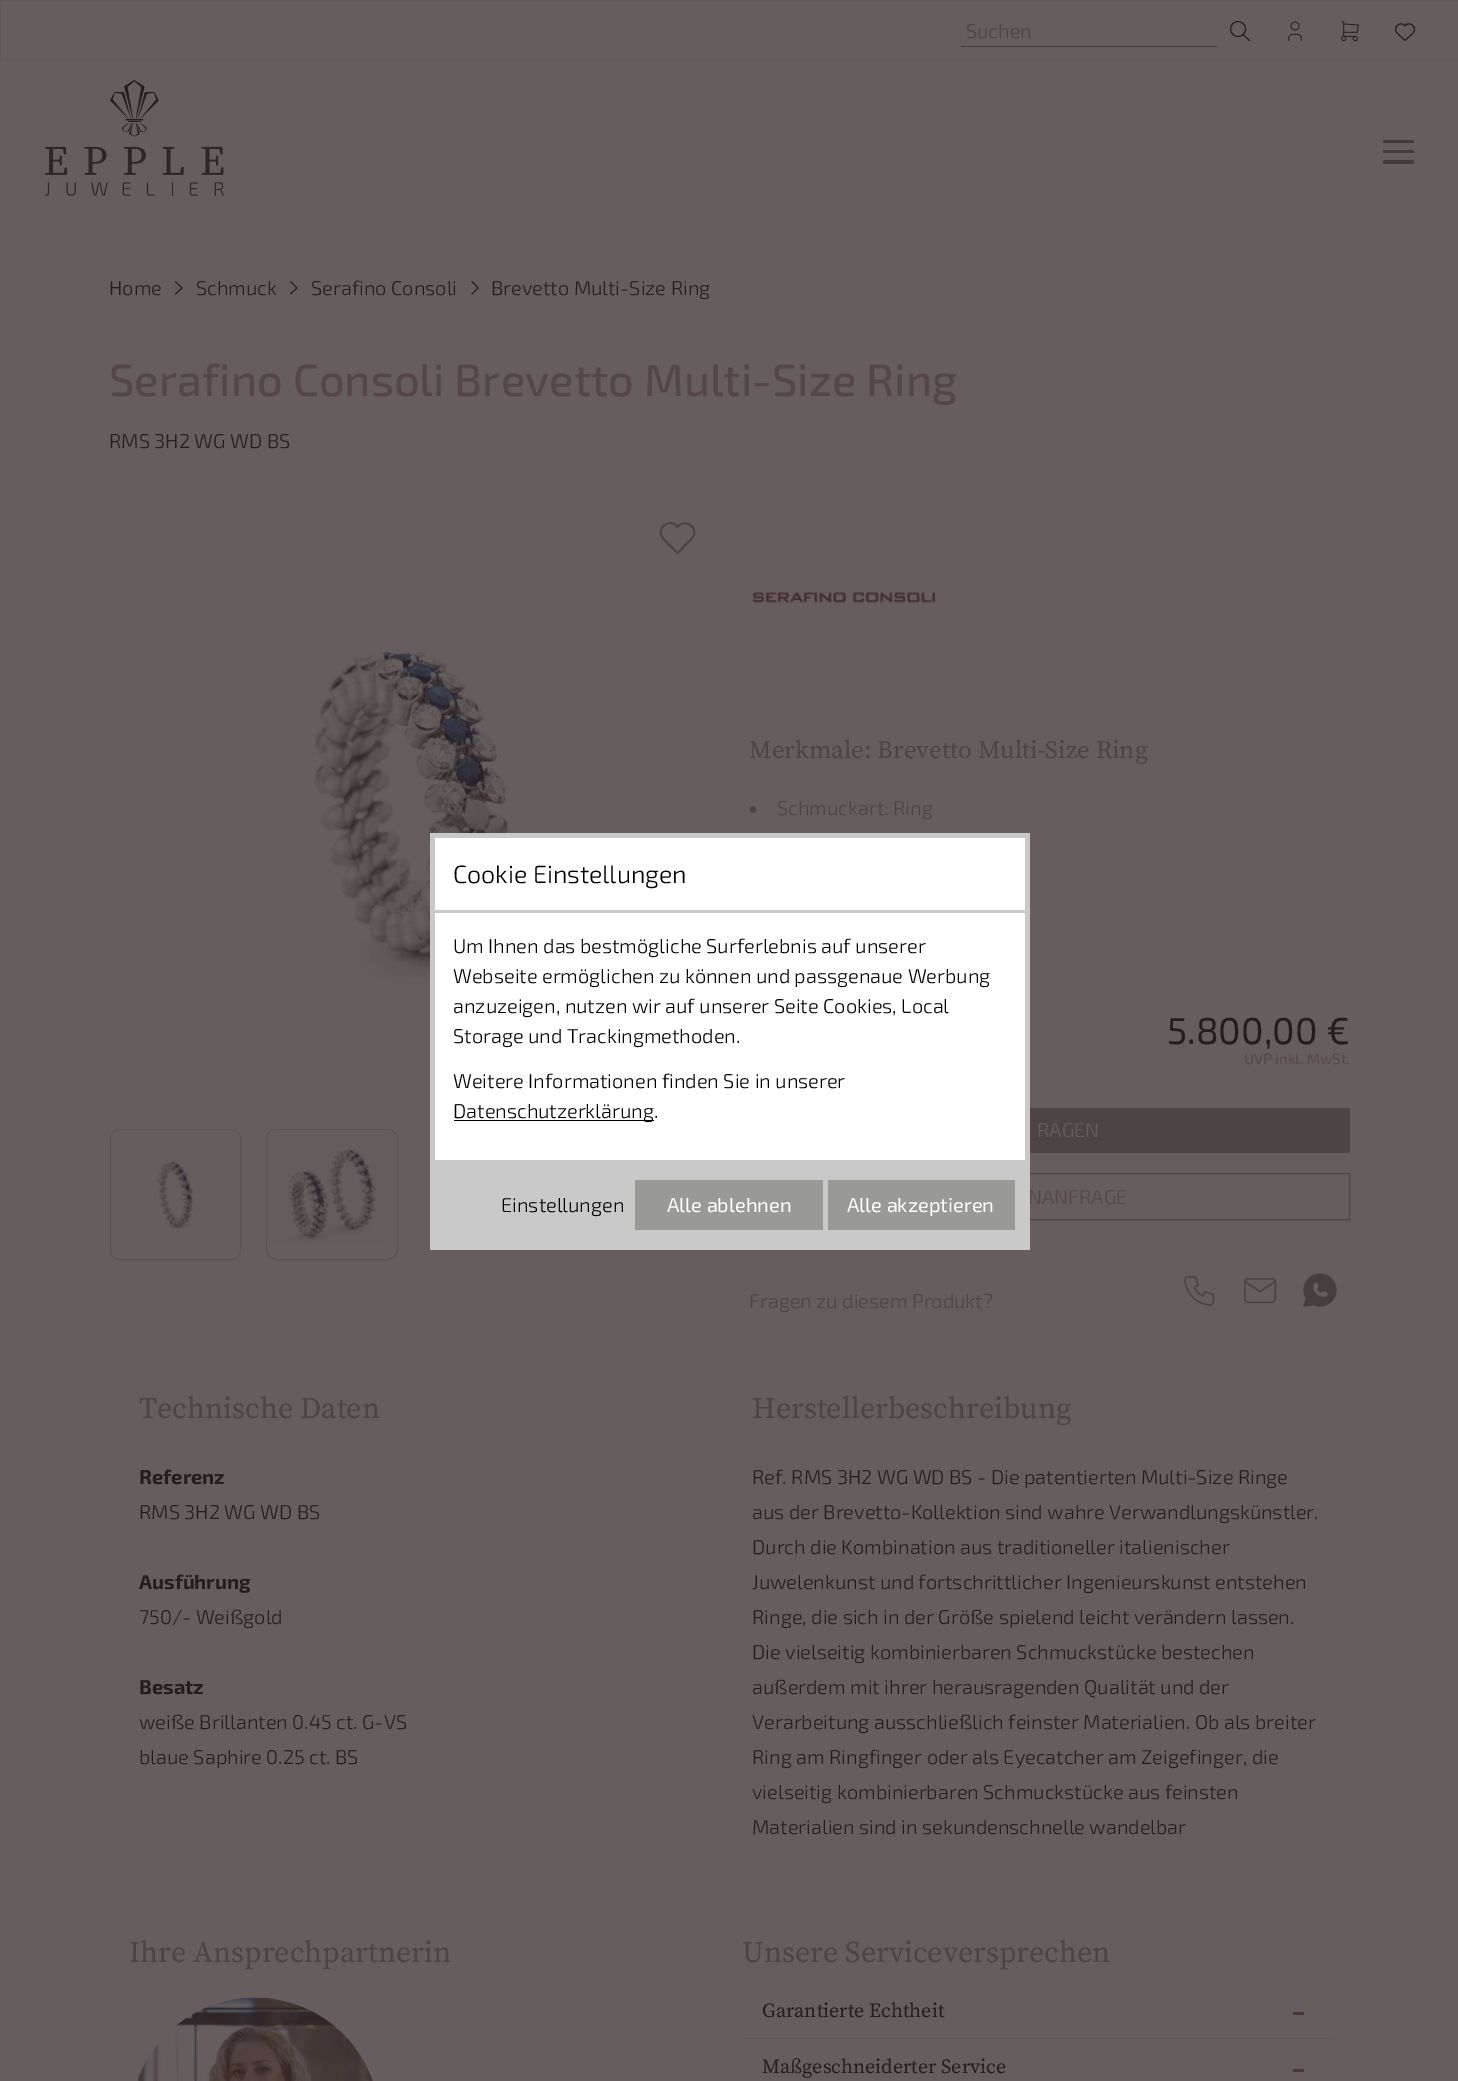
%!PS
<< /PageSize [1458 2081] >> setpagedevice
/m/moveto load def
/l/rlineto load def
/c/rcurveto load def
/f/fill load def
/s/stroke load def
/w/setlinewidth load def
/C { dup -16 bitshift 255 div exch dup -8 bitshift 255 and 255 div exch 255 and 255 div setrgbcolor } def
/F { [ exch dup neg 0 0 3 -1 roll 0 0 ] selectfont } def
/T { moveto show } def
/R { rectfill } def
/O { newpath 0 360 arc closepath } def
/Q { 5 dict begin { /r /h /w /y /x } { exch def } forall
  x r add y moveto x w add y 2 copy h add r arct x w add y h add x 1 index r arct
  x y h add x y r arct x y 2 copy exch w add exch r arct closepath end } def
/I { 5 dict begin { /h /w /y /x /name } { exch def } forall
  gsave x y translate w h scale
  w h 8 [w 0 0 h 0 0] name (r) file false 3 colorimage grestore end } def
0 2081 translate 1 -1 scale
4 setmiterlimit
16#665E5E C
0 0 1458 2081 R
16#605958 C
0 0 1458 1 R
16#625B5B C
0 59 1458 1 R
16#605958 C
0 0 1 60 R
16#463E3E C
961 46 257 1 R
/Exo2-Light 20 F
16#4D4444 C
(Suchen) 966 38 T
16#261E1E C
1238 29 7.5 O s
1 setlinecap
1 setlinejoin
1249.5 40.5 m -6.5 -6 l s
(1.rgb) 1288 21 14 21 I
(2.rgb) 1341 21 18 21 I
1413 33 m -8 7.5 l -8 -7.5 l 1397 33 m -5 -5.5 3.5 -13 8 -7 c 4.5 -6 13 1.5 8 7 c s
(3.rgb) 45 80 179 116 I
16#443C3C C
1383 150 31 3 1.5 Q f
1383 140 31 3 1.5 Q f
1383 160 31 4 2 Q f
16#261E1E C
(Home) 109 295 T
175.5 281.5 m 6.5 6.5 l -6.5 6 l s
(Schmuck) 196 295 T
290.5 281.5 m 6.5 6.5 l -6.5 6 l s
(Serafino Consoli) 311 295 T
472 281.5 m 6 6.5 l -6 6 l s
(Brevetto Multi-Size Ring) 491 295 T
/Exo2-Medium 45 F
16#55464B C
(Serafino Consoli Brevetto Multi-Size Ring) 109 396 T
/Exo2-Light 20 F
16#261E1E C
(RMS 3H2 WG WD BS) 109 448 T
16#4D4444 C
1.9 w
691.5 539 m -14 14 l -14 -14 l 663.5 539 m -9.5 -9 6 -23 14 -12 c 8 -10.5 23.5 3 14 12 c s
(4.rgb) 313 651 196 333 I
16#5C5454 C
1 w
0 setlinecap
0 setlinejoin
110.5 1129.5 130 130 9.5 Q s
(5.rgb) 112 1130 128 128 I
266.5 1129.5 131 130 9.5 Q s
(6.rgb) 269 1130 122 116 I
(7.rgb) 752 592 184 11 I
/SourceSerifPro-Regular 25 F
16#4D4444 C
(Merkmale: Brevetto Multi-Size Ring) 749 758 T
750 806 6 7 3 Q f
/Exo2-Light 20 F
(Schmuckart: Ring) 777 815 T
/Exo2-Regular 37.5 F
16#261E1E C
(5.800,00 €) 1167 1044 T
/Exo2-Regular 15 F
16#55464B C
(UVP inkl. MwSt.) 1244 1064 T
16#4D4444 C
1030 1108 320 45 R
/Exo2-Light 20 F
16#665E5E C
(RAGEN) 1037 1137 T
16#4D4444 C
750.5 1173.5 599 46 rectstroke
16#55464B C
(NANFRAGE) 1028 1204 T
16#4D4444 C
(Fragen zu diesem Produkt?) 749 1308 T
(8.rgb) 1184 1275 31 31 I
1.5 w
1244.75 1278.75 30.5 23.5 3.25 Q s
1.7 w
1 setlinecap
1 setlinejoin
1245 1281.5 m 15 10 l 15 -10 l s
(9.rgb) 1303 1273 34 34 I
/SourceSerifPro-Regular 30 F
(Technische Daten) 139 1418 T
/Exo2-Bold 20 F
16#261E1E C
(Referenz) 139 1484 T
/Exo2-Light 20 F
(RMS 3H2 WG WD BS) 139 1519 T
/Exo2-Bold 20 F
(Ausführung) 139 1589 T
/Exo2-Light 20 F
(750/- Weißgold) 139 1624 T
/Exo2-Bold 20 F
(Besatz) 139 1694 T
/Exo2-Light 20 F
(weiße Brillanten 0.45 ct. G-VS) 139 1729 T
(blaue Saphire 0.25 ct. BS) 139 1764 T
/SourceSerifPro-Regular 30 F
16#4D4444 C
(Herstellerbeschreibung) 752 1418 T
/Exo2-Light 20 F
16#261E1E C
(Ref. RMS 3H2 WG WD BS - Die patentierten Multi-Size Ringe) 752 1484 T
(aus der Brevetto-Kollektion sind wahre Verwandlungskünstler.) 752 1519 T
(Durch die Kombination aus traditioneller italienischer) 752 1554 T
(Juwelenkunst und fortschrittlicher Ingenieurskunst entstehen) 752 1589 T
(Ringe, die sich in der Größe spielend leicht verändern lassen.) 752 1624 T
(Die vielseitig kombinierbaren Schmuckstücke bestechen) 752 1659 T
(außerdem mit ihrer herausragenden Qualität und der) 752 1694 T
(Verarbeitung ausschließlich feinster Materialien. Ob als breiter) 752 1729 T
(Ring am Ringfinger oder als Eyecatcher am Zeigefinger, die) 752 1764 T
(vielseitig kombinierbaren Schmuckstücke aus feinsten) 752 1799 T
(Materialien sind in sekundenschnelle wandelbar) 752 1834 T
/SourceSerifPro-Regular 30 F
16#4D4444 C
(Ihre Ansprechpartnerin) 129 1962 T
(10.rgb) 137 1997 236 84 I
(Unsere Serviceversprechen) 742 1962 T
16#5C5454 C
743 2038 587 1 R
/SourceSerifPro-Regular 20 F
16#261E1E C
(Garantierte Echtheit) 762 2017 T
16#4D3933 C
1293 2012 11 3 R
16#261E1E C
(Maßgeschneiderter Service) 762 2073 T
16#4D3933 C
1293 2069 11 3 R
16#C9C9C9 C
430 833 600 417 R
16#FFFFFF C
435 838 590 72 R
/Exo2-Light 25 F
16#000000 C
(Cookie Einstellungen) 453 883 T
16#FFFFFF C
435 913 590 247 R
/Exo2-Light 20 F
16#000000 C
(Um Ihnen das bestmögliche Surferlebnis auf unserer) 453 953 T
(Webseite ermöglichen zu können und passgenaue Werbung) 453 983 T
(anzuzeigen, nutzen wir auf unserer Seite Cookies, Local) 453 1013 T
(Storage und Trackingmethoden.) 453 1043 T
(Weitere Informationen finden Sie in unserer) 453 1088 T
454 1120 200 1 R
(Datenschutzerklärung.) 453 1118 T
(Einstellungen) 501 1212 T
16#999996 C
635 1180 188 50 R
/Exo2-Regular 20 F
16#FFFFFF C
(Alle ablehnen) 667 1212 T
16#999996 C
828 1180 187 50 R
16#FFFFFF C
(Alle akzeptieren) 847 1212 T
showpage
